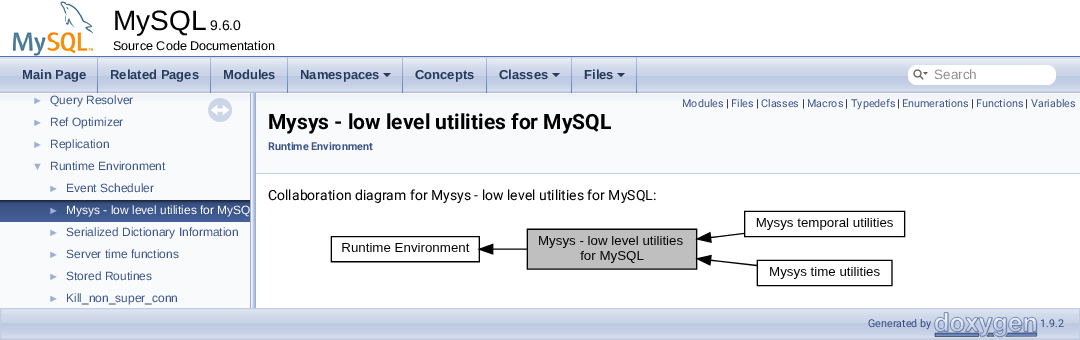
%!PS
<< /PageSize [1080 340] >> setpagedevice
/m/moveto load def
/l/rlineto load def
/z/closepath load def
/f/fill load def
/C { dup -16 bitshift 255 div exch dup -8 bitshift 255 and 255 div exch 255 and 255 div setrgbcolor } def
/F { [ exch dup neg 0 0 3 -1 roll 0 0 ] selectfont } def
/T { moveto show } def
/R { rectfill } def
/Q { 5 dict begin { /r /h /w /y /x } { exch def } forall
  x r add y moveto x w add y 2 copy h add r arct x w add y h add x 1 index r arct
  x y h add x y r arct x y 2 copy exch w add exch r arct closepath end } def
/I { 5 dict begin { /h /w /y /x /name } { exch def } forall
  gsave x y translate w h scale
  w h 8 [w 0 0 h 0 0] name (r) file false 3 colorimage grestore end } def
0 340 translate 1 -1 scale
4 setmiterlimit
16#FFFFFF C
0 0 1080 340 R
16#5373B4 C
0 56 1080 1 R
(1.rgb) 13 1 80 55 I
/LiberationSans-Regular 28 F
16#000000 C
(MySQL) 113 30 T
/LiberationSans-Regular 14 F
(9.6.0) 210 30 T
/LiberationSans-Regular 12.6 F
(Source Code Documentation) 113 50 T
(2.rgb) 0 57 1080 36 I
(3.rgb) 97 57 1 36 I
/LiberationSans-Bold 13 F
16#283A5D C
(Main Page) 22 79 T
(3.rgb) 210 57 1 36 I
(Related Pages) 110 79 T
(3.rgb) 287 57 1 36 I
(Modules) 223 79 T
(3.rgb) 402 57 1 36 I
(Namespaces) 300 79 T
383 73 m 8 0 l -4 4 l z f
(3.rgb) 486 57 1 36 I
(Concepts) 415 79 T
(3.rgb) 571 57 1 36 I
(Classes) 499 79 T
552 73 m 8 0 l -4 4 l z f
(3.rgb) 636 57 1 36 I
(Files) 584 79 T
617 73 m 8 0 l -4 4 l z f
16#FFFFFF C
908 65 148 20 9 Q f
(4.rgb) 913 69 15 11 I
/LiberationSans-Regular 13.5 F
16#909090 C
(Search) 934 79 T
16#F9FAFC C
0 101 250 207 R
(5.rgb) 0 93 250 8 I
/LiberationSans-Regular 11 F
16#9CAFD4 C
(►) 32 104 T
/LiberationSans-Regular 12 F
16#3D578C C
(Query Resolver) 50 104 T
/LiberationSans-Regular 11 F
16#9CAFD4 C
(►) 32 126 T
/LiberationSans-Regular 12 F
16#3D578C C
(Ref Optimizer) 50 126 T
/LiberationSans-Regular 11 F
16#9CAFD4 C
(►) 32 148 T
/LiberationSans-Regular 12 F
16#3D578C C
(Replication) 50 148 T
/LiberationSans-Regular 11 F
16#9CAFD4 C
(▼) 32 170 T
/LiberationSans-Regular 12 F
16#3D578C C
(Runtime Environment) 50 170 T
/LiberationSans-Regular 11 F
16#9CAFD4 C
(►) 48 192 T
/LiberationSans-Regular 12 F
16#3D578C C
(Event Scheduler) 66 192 T
(6.rgb) 0 200 250 22 I
/LiberationSans-Regular 11 F
16#9CAFD4 C
(►) 48 214 T
/LiberationSans-Regular 12 F
16#FFFFFF C
(Mysys - low level utilities for MySQ) 66 214 T
/LiberationSans-Regular 11 F
16#9CAFD4 C
(►) 48 236 T
/LiberationSans-Regular 12 F
16#3D578C C
(Serialized Dictionary Information) 66 236 T
/LiberationSans-Regular 11 F
16#9CAFD4 C
(►) 48 258 T
/LiberationSans-Regular 12 F
16#3D578C C
(Server time functions) 66 258 T
/LiberationSans-Regular 11 F
16#9CAFD4 C
(►) 48 280 T
/LiberationSans-Regular 12 F
16#3D578C C
(Stored Routines) 66 280 T
/LiberationSans-Regular 11 F
16#9CAFD4 C
(►) 48 302 T
/LiberationSans-Regular 12 F
16#3D578C C
(Kill_non_super_conn) 66 302 T
(7.rgb) 208 98 24 24 I
(8.rgb) 250 93 6 215 I
16#F9FAFC C
256 101 824 72 R
(9.rgb) 256 93 824 8 I
16#C4CFE5 C
256 173 824 1 R
/Roboto-Regular 10.75 F
16#3D578C C
(Modules) 682 107 T
16#000000 C
(|) 726 107 T
16#3D578C C
(Files) 731 107 T
16#000000 C
(|) 756 107 T
16#3D578C C
(Classes) 761 107 T
16#000000 C
(|) 802 107 T
16#3D578C C
(Macros) 807 107 T
16#000000 C
(|) 845 107 T
16#3D578C C
(Typedefs) 851 107 T
16#000000 C
(|) 897 107 T
16#3D578C C
(Enumerations) 902 107 T
16#000000 C
(|) 971 107 T
16#3D578C C
(Functions) 976 107 T
16#000000 C
(|) 1025 107 T
16#3D578C C
(Variables) 1031 107 T
/Roboto-Bold 21 F
16#000000 C
(Mysys - low level utilities for MySQL) 268 129 T
/Roboto-Bold 10.75 F
16#3D578C C
(Runtime Environment) 268 150 T
/Roboto-Regular 14 F
16#000000 C
(Collaboration diagram for Mysys - low level utilities for MySQL:) 268 200 T
(10.rgb) 330 210 576 77 I
(11.rgb) 1 309 1078 30 I
16#C2CDE4 C
.5 308.5 1079 31 rectstroke
/Roboto-Regular 10.75 F
16#364D7C C
(Generated by) 868 327 T
(12.rgb) 934 312 104 26 I
(1.9.2) 1040 327 T
showpage
